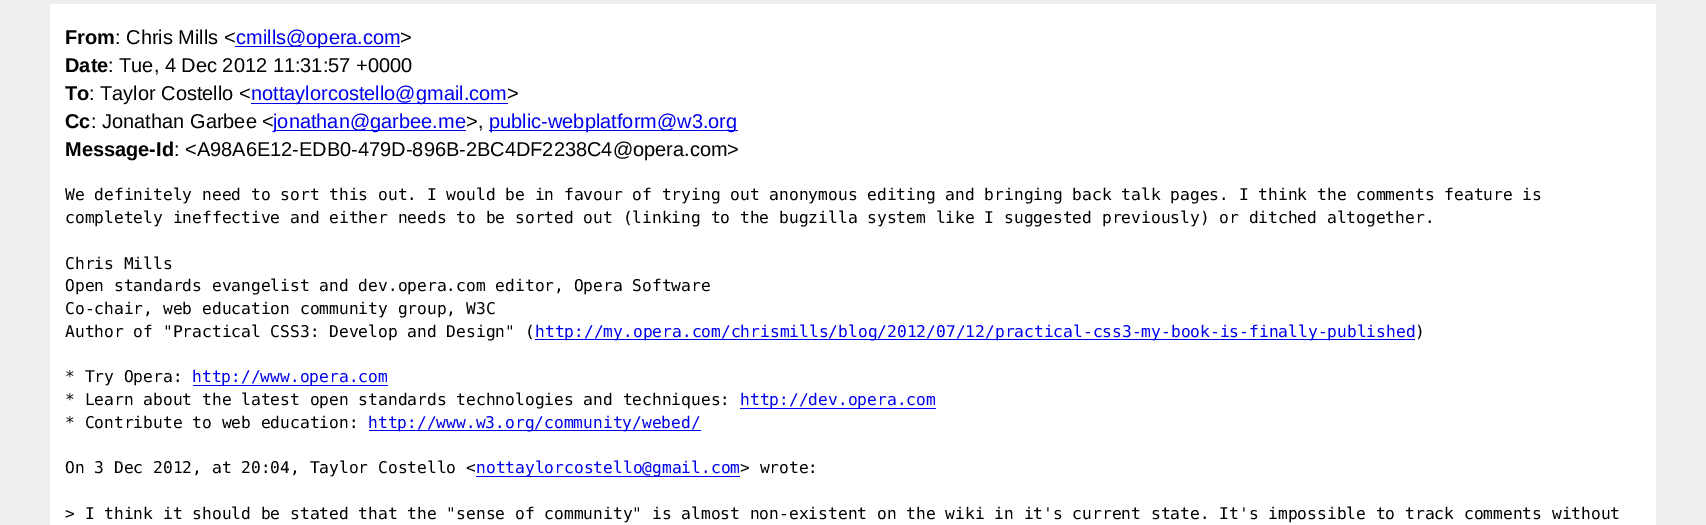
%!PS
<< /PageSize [1706 525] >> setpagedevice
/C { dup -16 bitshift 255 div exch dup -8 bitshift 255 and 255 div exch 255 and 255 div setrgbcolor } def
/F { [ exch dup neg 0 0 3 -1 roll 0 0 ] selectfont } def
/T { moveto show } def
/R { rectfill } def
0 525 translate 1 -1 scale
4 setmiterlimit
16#EEEEEE C
0 0 1706 525 R
16#FFFFFF C
50 4 1606 521 R
/LiberationSans-Bold 20 F
16#000000 C
(From) 65 44 T
/LiberationSans-Regular 20 F
(: Chris Mills <) 115 44 T
16#0000EE C
235 46 165 1 R
(cmills@opera.com) 236 44 T
16#000000 C
(>) 400 44 T
/LiberationSans-Bold 20 F
(Date) 65 72 T
/LiberationSans-Regular 20 F
(: Tue, 4 Dec 2012 11:31:57 +0000) 108 72 T
/LiberationSans-Bold 20 F
(To) 65 100 T
/LiberationSans-Regular 20 F
(: Taylor Costello <) 89 100 T
16#0000EE C
251 103 257 1 R
(nottaylorcostello@gmail.com) 251 100 T
16#000000 C
(>) 507 100 T
/LiberationSans-Bold 20 F
(Cc) 65 128 T
/LiberationSans-Regular 20 F
(: Jonathan Garbee <) 91 128 T
16#0000EE C
274 130 192 1 R
(jonathan@garbee.me) 273 128 T
16#000000 C
(>,) 466 128 T
16#0000EE C
489 130 249 1 R
(public-webplatform@w3.org) 489 128 T
/LiberationSans-Bold 20 F
16#000000 C
(Message-Id) 65 156 T
/LiberationSans-Regular 20 F
(: <A98A6E12-EDB0-479D-896B-2BC4DF2238C4@opera.com>) 174 156 T
/DejaVuSansMono-Regular 16.25 F
(We definitely need to sort this out. I would be in favour of trying out anonymous editing and bringing back talk pages. I think the comments feature is) 65 200 T
(completely ineffective and either needs to be sorted out \(linking to the bugzilla system like I suggested previously\) or ditched altogether.) 65 223 T
(Chris Mills) 65 269 T
(Open standards evangelist and dev.opera.com editor, Opera Software) 65 291 T
(Co-chair, web education community group, W3C) 65 314 T
(Author of "Practical CSS3: Develop and Design" \() 65 337 T
16#0000EE C
535 339 880 1 R
(http://my.opera.com/chrismills/blog/2012/07/12/practical-css3-my-book-is-finally-published) 535 337 T
16#000000 C
(\)) 1415 337 T
(* Try Opera:) 65 382 T
16#0000EE C
193 385 195 1 R
(http://www.opera.com) 192 382 T
16#000000 C
(* Learn about the latest open standards technologies and techniques:) 65 405 T
16#0000EE C
740 408 196 1 R
(http://dev.opera.com) 740 405 T
16#000000 C
(* Contribute to web education:) 65 428 T
16#0000EE C
369 430 332 1 R
(http://www.w3.org/community/webed/) 368 428 T
16#000000 C
(On 3 Dec 2012, at 20:04, Taylor Costello <) 65 473 T
16#0000EE C
476 476 264 1 R
(nottaylorcostello@gmail.com) 476 473 T
16#000000 C
(> wrote:) 740 473 T
(> I think it should be stated that the "sense of community" is almost non-existent on the wiki in it's current state. It's impossible to track comments without) 65 519 T
showpage
